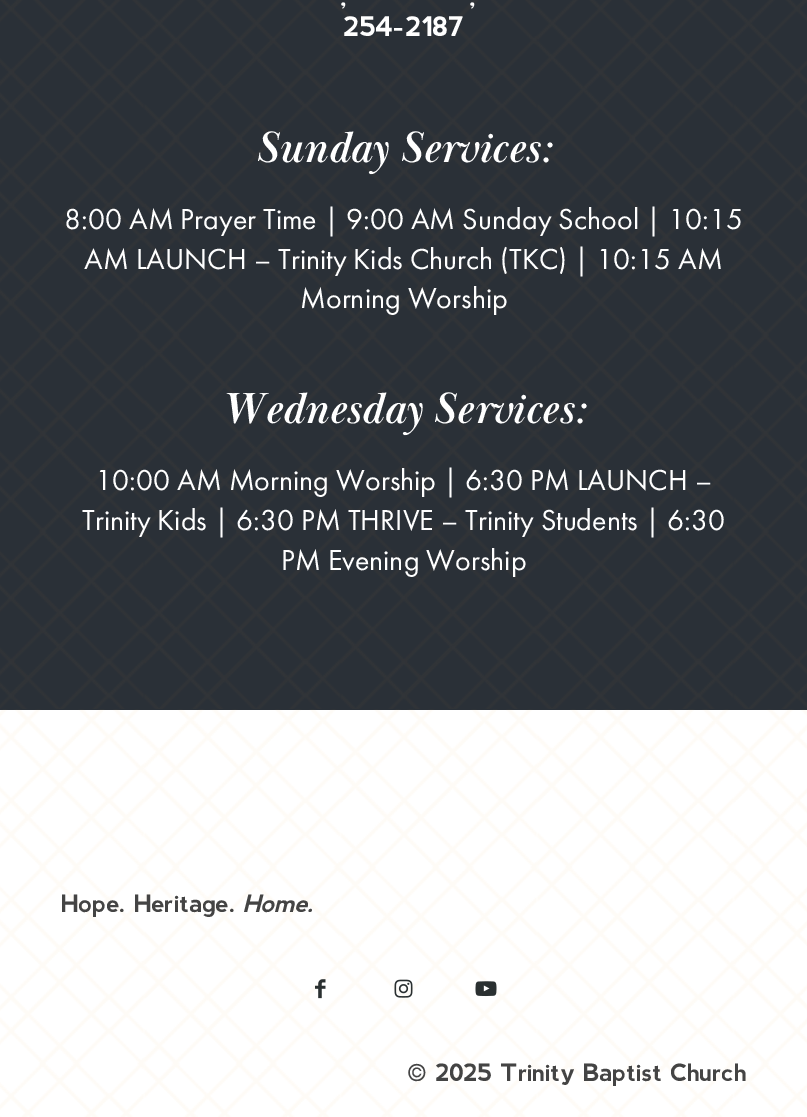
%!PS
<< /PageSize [807 1117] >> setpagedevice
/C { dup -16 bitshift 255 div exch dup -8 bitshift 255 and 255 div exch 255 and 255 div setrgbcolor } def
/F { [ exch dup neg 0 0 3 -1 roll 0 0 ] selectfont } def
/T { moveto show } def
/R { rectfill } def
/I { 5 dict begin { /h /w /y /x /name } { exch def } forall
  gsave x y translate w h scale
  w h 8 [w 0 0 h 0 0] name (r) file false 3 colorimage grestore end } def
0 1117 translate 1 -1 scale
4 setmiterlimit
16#2A3037 C
0 0 807 1117 R
(1.rgb) 0 0 807 709 I
/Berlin-Bold 27 F
16#FFFFFF C
(,) 340 6 T
(,) 469 6 T
(254-2187) 343 36 T
/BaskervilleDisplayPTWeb-BoldItalic 45 F
(Sunday Services:) 255 162 T
/FuturaPT-Regular 30 F
(8:00 AM Prayer Time | 9:00 AM Sunday School | 10:15) 64 229 T
(AM LAUNCH – Trinity Kids Church \(TKC\) | 10:15 AM) 84 269 T
(Morning Worship) 300 308 T
/BaskervilleDisplayPTWeb-BoldItalic 45 F
(Wednesday Services:) 221 423 T
/FuturaPT-Regular 30 F
(10:00 AM Morning Worship | 6:30 PM LAUNCH –) 95 490 T
(Trinity Kids | 6:30 PM THRIVE – Trinity Students | 6:30) 82 530 T
(PM Evening Worship) 281 570 T
0 710 807 407 R
(2.rgb) 0 709 807 408 I
/Berlin-Bold 24 F
16#444444 C
(Hope. Heritage.) 61 912 T
/Berlin-BoldItalic 24 F
(Home.) 243 912 T
(3.rgb) 315 979 11 20 I
(4.rgb) 394 979 19 19 I
(5.rgb) 475 981 22 16 I
/Berlin-Bold 24 F
(© 2025 Trinity Baptist Church) 407 1081 T
showpage
